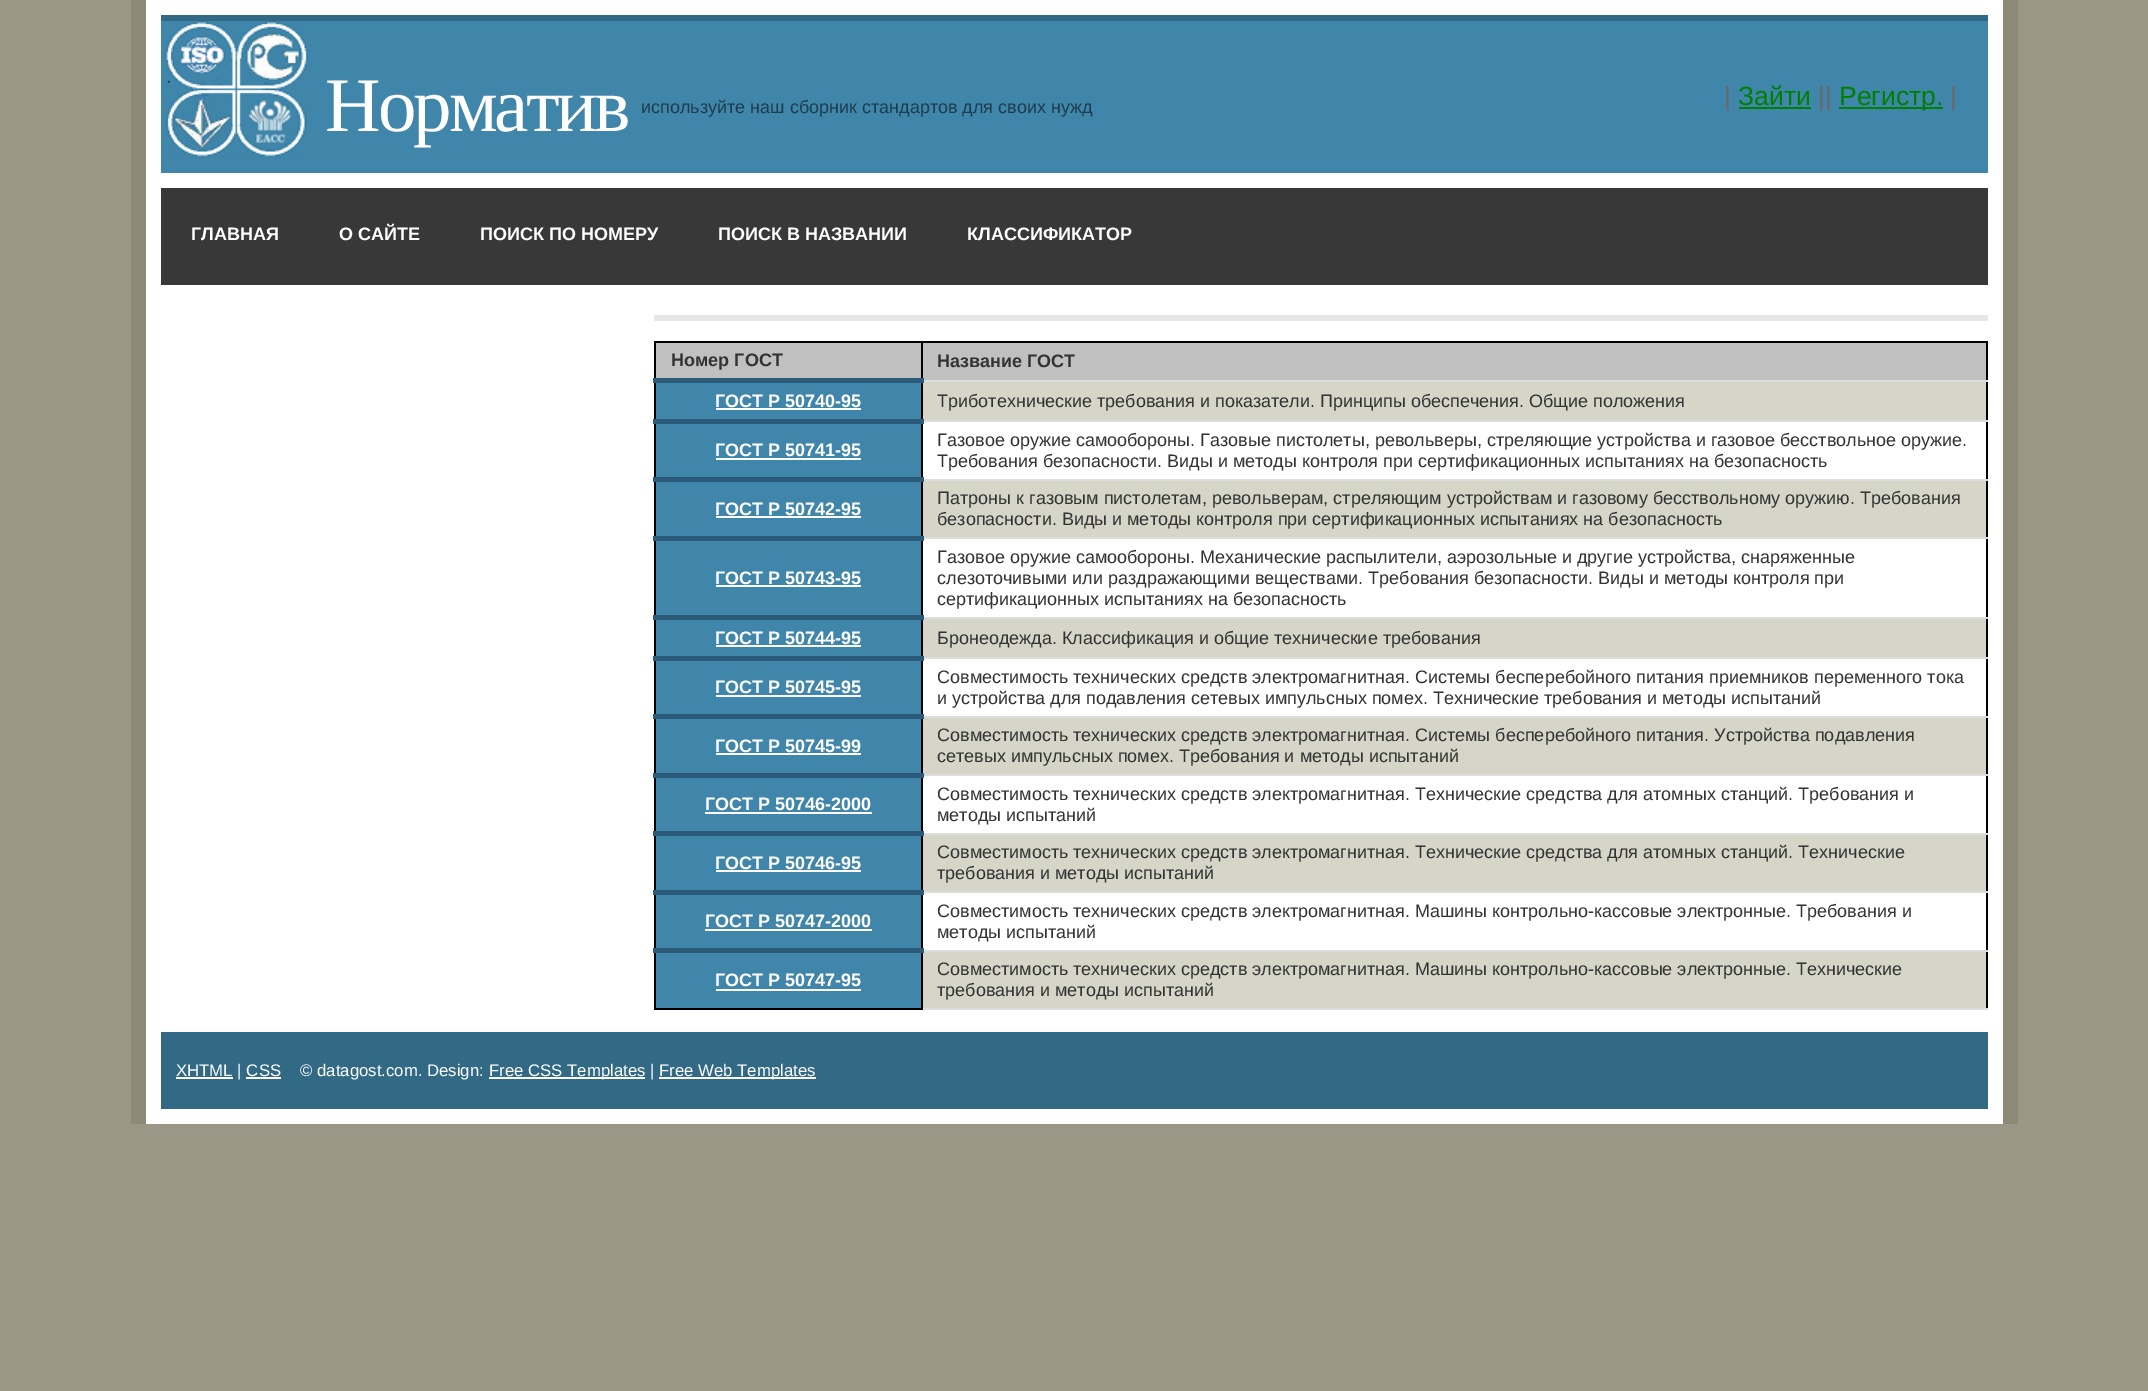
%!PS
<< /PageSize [2148 1391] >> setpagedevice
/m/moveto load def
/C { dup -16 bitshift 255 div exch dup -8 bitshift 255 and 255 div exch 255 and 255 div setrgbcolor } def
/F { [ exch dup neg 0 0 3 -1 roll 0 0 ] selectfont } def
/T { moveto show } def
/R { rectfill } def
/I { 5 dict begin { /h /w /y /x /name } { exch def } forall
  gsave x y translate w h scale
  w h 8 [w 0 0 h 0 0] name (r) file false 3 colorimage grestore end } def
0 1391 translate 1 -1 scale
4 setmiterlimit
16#9A9786 C
0 0 2148 1391 R
16#FFFFFF C
146 0 1857 1124 R
16#8D8A77 C
2003 0 15 1124 R
131 0 15 1124 R
16#4086AA C
161 21 1827 152 R
(1.rgb) 165 21 143 137 I
16#326A85 C
161 15 1827 6 R
/LiberationSerif-Regular 77 F
16#FFFFFF C
325 131 m -3 0 (Норматив) ashow
/LiberationSans-Regular 18 F
16#1D3D4E C
(используйте наш сборник стандартов для своих нужд) 641 113 T
/LiberationSans-Regular 26.5 F
16#696969 C
(|) 1724 105 T
16#008000 C
(Зайти) 1738 105 T
1739 107 72 2 R
16#696969 C
(||) 1818 105 T
16#008000 C
1839 107 104 2 R
(Регистр.) 1839 105 T
16#696969 C
(|) 1950 105 T
16#383838 C
161 188 1827 97 R
/LiberationSans-Bold 18 F
16#FFFFFF C
(ГЛАВНАЯ) 191 240 T
(О САЙТЕ) 339 240 T
(ПОИСК ПО НОМЕРУ) 480 240 T
(ПОИСК В НАЗВАНИИ) 718 240 T
(КЛАССИФИКАТОР) 967 240 T
16#E6E6E6 C
654 315 1334 6 R
16#000000 C
654 341 1334 2 R
1986 341 2 669 R
654 1008 267 2 R
654 383 2 627 R
16#C0C0C0 C
656 343 265 35 R
16#000000 C
654 341 2 40 R
16#333333 C
(Номер ГОСТ) 671 366 T
16#C0C0C0 C
923 343 1063 37 R
16#DDDDDD C
921 1008 1067 2 R
16#000000 C
921 950 2 60 R
16#DDDDDD C
921 950 1067 2 R
16#000000 C
921 891 2 60 R
16#DDDDDD C
921 891 1067 2 R
16#000000 C
921 833 2 60 R
16#DDDDDD C
921 833 1067 2 R
16#000000 C
921 774 2 60 R
16#DDDDDD C
921 774 1067 2 R
16#000000 C
921 716 2 60 R
16#DDDDDD C
921 716 1067 2 R
16#000000 C
921 657 2 60 R
16#DDDDDD C
921 657 1067 2 R
16#000000 C
921 617 2 42 R
16#DDDDDD C
921 617 1067 2 R
16#000000 C
921 537 2 81 R
16#DDDDDD C
921 537 1067 2 R
16#000000 C
921 479 2 60 R
16#DDDDDD C
921 479 1067 2 R
16#000000 C
921 420 2 60 R
16#DDDDDD C
921 420 1067 2 R
16#000000 C
921 380 2 42 R
16#DDDDDD C
921 380 1067 2 R
16#000000 C
921 341 2 40 R
16#333333 C
(Название ГОСТ) 937 367 T
16#D5D5C8 C
923 382 1063 38 R
16#4086AA C
656 383 265 36 R
16#2B5B78 C
653 378 271 5 R
16#FFFFFF C
(ГОСТ Р 50740-95) 715 407 T
716 408 145 2 R
/LiberationSans-Regular 18 F
16#333333 C
(Триботехнические требования и показатели. Принципы обеспечения. Общие положения) 937 407 T
16#4086AA C
656 424 265 53 R
16#2B5B78 C
653 419 271 5 R
/LiberationSans-Bold 18 F
16#FFFFFF C
(ГОСТ Р 50741-95) 715 456 T
716 458 145 2 R
/LiberationSans-Regular 18 F
16#333333 C
(Газовое оружие самообороны. Газовые пистолеты, револьверы, стреляющие устройства и газовое бесствольное оружие.) 937 446 T
(Требования безопасности. Виды и методы контроля при сертификационных испытаниях на безопасность) 937 467 T
16#D5D5C8 C
923 481 1063 56 R
16#4086AA C
656 482 265 54 R
16#2B5B78 C
653 477 271 5 R
/LiberationSans-Bold 18 F
16#FFFFFF C
(ГОСТ Р 50742-95) 715 515 T
716 516 145 2 R
/LiberationSans-Regular 18 F
16#333333 C
(Патроны к газовым пистолетам, револьверам, стреляющим устройствам и газовому бесствольному оружию. Требования) 937 504 T
(безопасности. Виды и методы контроля при сертификационных испытаниях на безопасность) 937 525 T
16#4086AA C
656 541 265 74 R
16#2B5B78 C
653 536 271 5 R
/LiberationSans-Bold 18 F
16#FFFFFF C
(ГОСТ Р 50743-95) 715 584 T
716 585 145 2 R
/LiberationSans-Regular 18 F
16#333333 C
(Газовое оружие самообороны. Механические распылители, аэрозольные и другие устройства, снаряженные) 937 563 T
(слезоточивыми или раздражающими веществами. Требования безопасности. Виды и методы контроля при) 937 584 T
(сертификационных испытаниях на безопасность) 937 605 T
16#D5D5C8 C
923 619 1063 38 R
16#4086AA C
656 620 265 36 R
16#2B5B78 C
653 615 271 5 R
/LiberationSans-Bold 18 F
16#FFFFFF C
(ГОСТ Р 50744-95) 715 644 T
716 645 145 2 R
/LiberationSans-Regular 18 F
16#333333 C
(Бронеодежда. Классификация и общие технические требования) 937 644 T
16#4086AA C
656 661 265 53 R
16#2B5B78 C
653 656 271 5 R
/LiberationSans-Bold 18 F
16#FFFFFF C
(ГОСТ Р 50745-95) 715 693 T
716 695 145 2 R
/LiberationSans-Regular 18 F
16#333333 C
(Совместимость технических средств электромагнитная. Системы бесперебойного питания приемников переменного тока) 937 683 T
(и устройства для подавления сетевых импульсных помех. Технические требования и методы испытаний) 937 704 T
16#D5D5C8 C
923 718 1063 56 R
16#4086AA C
656 719 265 54 R
16#2B5B78 C
653 714 271 5 R
/LiberationSans-Bold 18 F
16#FFFFFF C
(ГОСТ Р 50745-99) 715 752 T
716 753 145 2 R
/LiberationSans-Regular 18 F
16#333333 C
(Совместимость технических средств электромагнитная. Системы бесперебойного питания. Устройства подавления) 937 741 T
(сетевых импульсных помех. Требования и методы испытаний) 937 762 T
16#4086AA C
656 778 265 53 R
16#2B5B78 C
653 773 271 5 R
/LiberationSans-Bold 18 F
16#FFFFFF C
(ГОСТ Р 50746-2000) 705 810 T
705 812 167 2 R
/LiberationSans-Regular 18 F
16#333333 C
(Совместимость технических средств электромагнитная. Технические средства для атомных станций. Требования и) 937 800 T
(методы испытаний) 937 821 T
16#D5D5C8 C
923 835 1063 56 R
16#4086AA C
656 836 265 54 R
16#2B5B78 C
653 831 271 5 R
/LiberationSans-Bold 18 F
16#FFFFFF C
(ГОСТ Р 50746-95) 715 869 T
716 870 145 2 R
/LiberationSans-Regular 18 F
16#333333 C
(Совместимость технических средств электромагнитная. Технические средства для атомных станций. Технические) 937 858 T
(требования и методы испытаний) 937 879 T
16#4086AA C
656 895 265 53 R
16#2B5B78 C
653 890 271 5 R
/LiberationSans-Bold 18 F
16#FFFFFF C
(ГОСТ Р 50747-2000) 705 927 T
705 929 167 2 R
/LiberationSans-Regular 18 F
16#333333 C
(Совместимость технических средств электромагнитная. Машины контрольно-кассовые электронные. Требования и) 937 917 T
(методы испытаний) 937 938 T
16#D5D5C8 C
923 952 1063 56 R
16#4086AA C
656 953 265 55 R
16#2B5B78 C
653 948 271 5 R
/LiberationSans-Bold 18 F
16#FFFFFF C
(ГОСТ Р 50747-95) 715 986 T
716 989 145 2 R
/LiberationSans-Regular 18 F
16#333333 C
(Совместимость технических средств электромагнитная. Машины контрольно-кассовые электронные. Технические) 937 975 T
(требования и методы испытаний) 937 996 T
16#326A85 C
161 1032 1827 77 R
16#FFFFFF C
176 1077 57 2 R
/LiberationSans-Regular 16.75 F
(XHTML | CSS) 176 1076 T
(© datagost.com. Design:) 300 1076 T
489 1077 156 2 R
(Free CSS Templates |) 489 1076 T
659 1077 157 2 R
(Free Web Templates) 659 1076 T
246 1077 35 2 R
showpage
